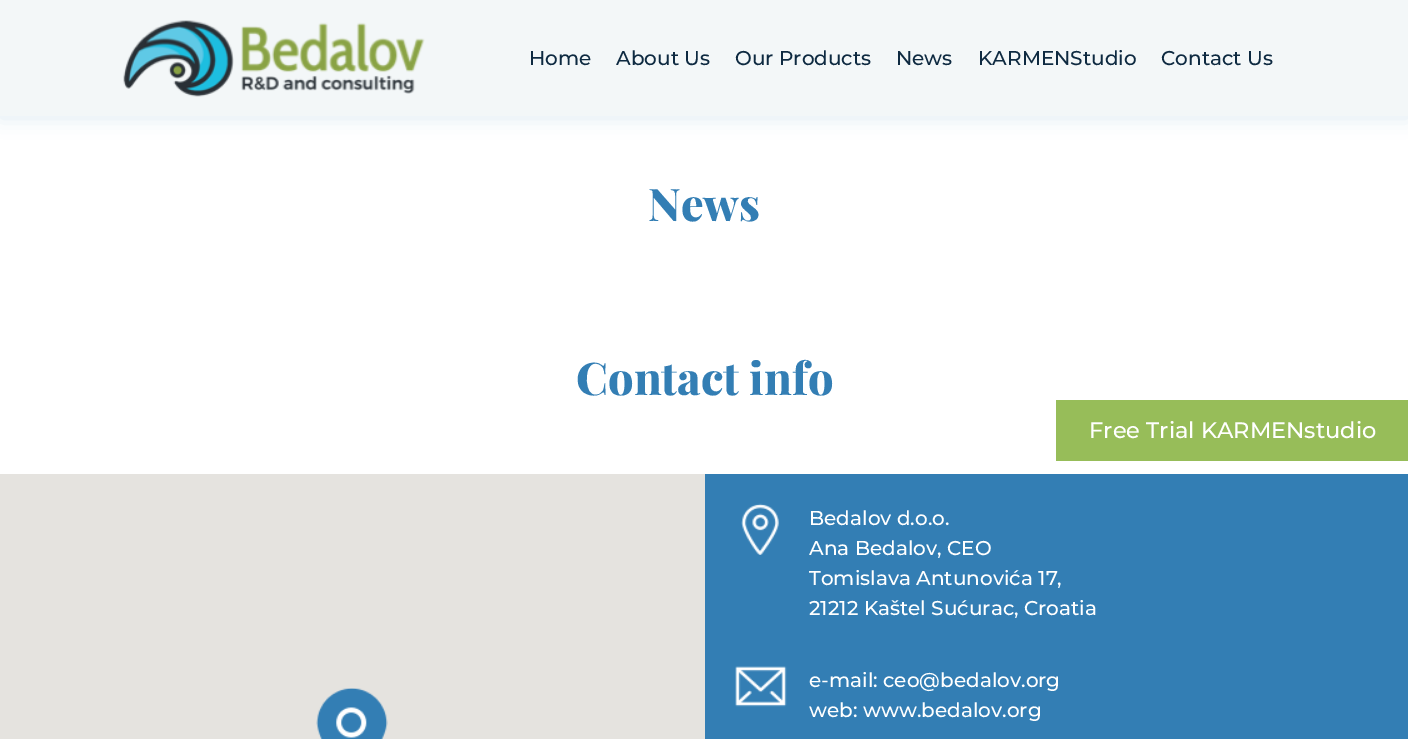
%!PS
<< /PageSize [1408 739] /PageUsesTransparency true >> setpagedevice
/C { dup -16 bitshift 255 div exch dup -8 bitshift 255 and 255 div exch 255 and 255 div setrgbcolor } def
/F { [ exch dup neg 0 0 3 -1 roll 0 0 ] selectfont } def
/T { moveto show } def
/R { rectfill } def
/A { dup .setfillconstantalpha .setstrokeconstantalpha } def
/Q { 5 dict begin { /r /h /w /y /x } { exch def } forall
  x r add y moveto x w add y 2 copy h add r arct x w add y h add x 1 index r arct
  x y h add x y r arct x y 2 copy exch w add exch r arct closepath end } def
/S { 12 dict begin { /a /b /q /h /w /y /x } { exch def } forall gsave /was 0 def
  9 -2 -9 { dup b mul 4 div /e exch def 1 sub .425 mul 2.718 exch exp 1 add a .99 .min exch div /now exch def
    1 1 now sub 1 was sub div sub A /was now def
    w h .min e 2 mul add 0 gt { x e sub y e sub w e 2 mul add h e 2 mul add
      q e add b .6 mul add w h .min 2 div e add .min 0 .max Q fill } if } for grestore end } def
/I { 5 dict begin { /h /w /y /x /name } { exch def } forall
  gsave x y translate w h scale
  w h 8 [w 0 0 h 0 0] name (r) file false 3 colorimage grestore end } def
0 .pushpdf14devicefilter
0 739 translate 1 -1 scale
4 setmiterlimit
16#FFFFFF C
0 0 1408 739 R
16#337EB4 C
0 1 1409 117 0 9.5 .15 S
16#F3F7F8 C
0 0 1408 116 R
(1.rgb) 123 20 302 77 I
/Montserrat-Medium 20 F
16#0E2A41 C
(Home) 529 65 T
(About Us) 616 65 T
(Our Products) 735 65 T
(News) 896 65 T
(KARMENStudio) 978 65 T
(Contact Us) 1161 65 T
/PlayfairDisplay-ExtraBold 45 F
16#337EB4 C
(News) 648 221 T
(Contact info) 576 395 T
16#E5E3DF C
0 474 705 265 R
(2.rgb) 316 688 72 51 I
16#337EB4 C
705 474 703 265 R
(3.rgb) 741 503 38 52 I
/Montserrat-Medium 20 F
16#FFFFFF C
(Bedalov d.o.o.) 809 525 T
(Ana Bedalov, CEO) 809 555 T
(Tomislava Antunovića 17,) 809 585 T
(21212 Kaštel Sućurac, Croatia) 809 615 T
(4.rgb) 735 666 52 41 I
(e-mail: ceo@bedalov.org) 809 687 T
(web: www.bedalov.org) 809 717 T
16#97BD59 C
1056 400 352 61 R
/Montserrat-Medium 22.5 F
16#FFFFFF C
(Free Trial KARMENstudio) 1089 438 T
.poppdf14devicefilter showpage
